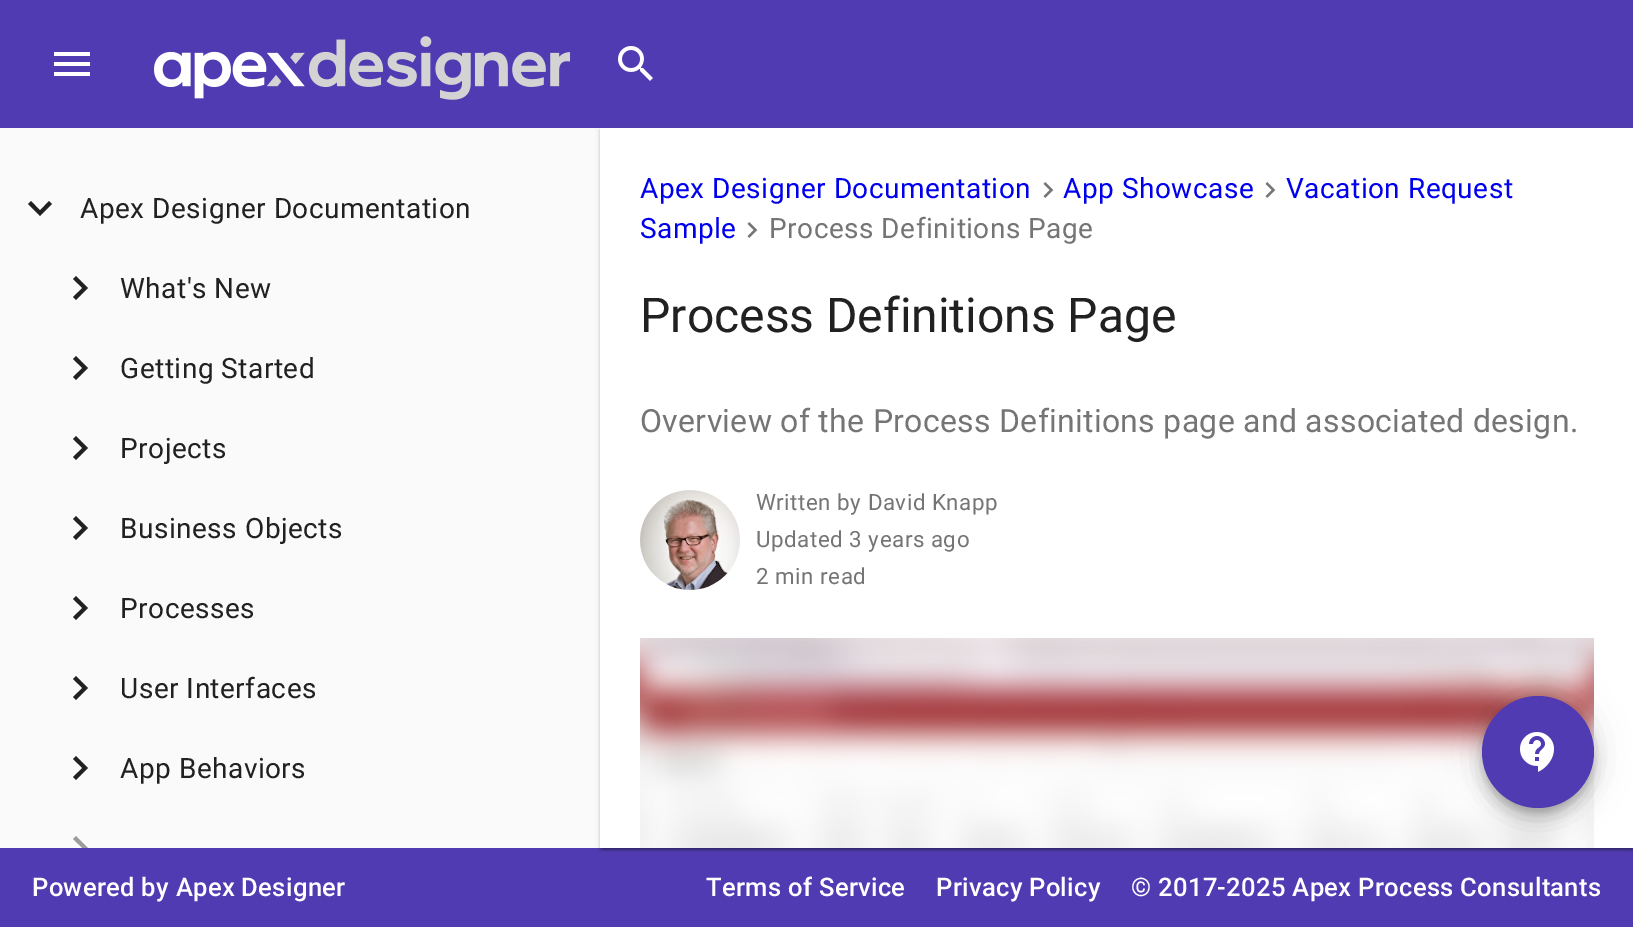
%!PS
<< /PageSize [1633 927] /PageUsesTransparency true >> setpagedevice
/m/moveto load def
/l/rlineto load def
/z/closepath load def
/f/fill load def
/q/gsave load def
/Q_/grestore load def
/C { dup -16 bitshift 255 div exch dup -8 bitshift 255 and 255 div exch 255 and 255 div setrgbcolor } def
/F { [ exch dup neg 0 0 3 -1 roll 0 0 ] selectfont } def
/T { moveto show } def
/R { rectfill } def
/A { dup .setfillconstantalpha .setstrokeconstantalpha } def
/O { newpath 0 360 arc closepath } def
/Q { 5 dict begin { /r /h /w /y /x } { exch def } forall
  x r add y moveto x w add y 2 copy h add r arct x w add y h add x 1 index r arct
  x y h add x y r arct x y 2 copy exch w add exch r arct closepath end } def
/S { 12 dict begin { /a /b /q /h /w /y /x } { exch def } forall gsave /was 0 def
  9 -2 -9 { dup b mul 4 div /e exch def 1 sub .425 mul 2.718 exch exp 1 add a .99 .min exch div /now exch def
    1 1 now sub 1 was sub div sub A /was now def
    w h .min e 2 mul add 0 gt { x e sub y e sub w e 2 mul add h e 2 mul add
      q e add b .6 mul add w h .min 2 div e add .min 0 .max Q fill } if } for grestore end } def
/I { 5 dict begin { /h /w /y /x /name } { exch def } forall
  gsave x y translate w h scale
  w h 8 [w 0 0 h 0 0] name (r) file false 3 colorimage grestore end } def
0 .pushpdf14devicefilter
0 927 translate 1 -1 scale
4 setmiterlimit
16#513BB3 C
0 0 1633 927 R
16#FFFFFF C
54 52 m 36 0 l 0 4 l -36 0 l z 54 66 m 0 -4 l 36 0 l 0 4 l z 54 76 m 0 -4 l 36 0 l 0 4 l z f
(1.rgb) 154 36 416 64 I
(2.rgb) 618 46 35 35 I
16#FAFAFA C
0 128 600 720 R
16#212121 C
31 201 m 9 9.5 l 9 -9.5 l 3 3 l -12 12 l -12 -12 l z f
/Roboto-Regular 28 F
80 218 m .5 0 (Apex Designer Documentation) ashow
73 297 m 9.5 -9 l -9.5 -9 l 3 -3 l 12 12 l -12 12 l z f
120 298 m .5 0 (What's New) ashow
73 377 m 9.5 -9 l -9.5 -9 l 3 -3 l 12 12 l -12 12 l z f
120 378 m .5 0 (Getting Started) ashow
73 457 m 9.5 -9 l -9.5 -9 l 3 -3 l 12 12 l -12 12 l z f
120 458 m .5 0 (Projects) ashow
73 537 m 9.5 -9 l -9.5 -9 l 3 -3 l 12 12 l -12 12 l z f
120 538 m .5 0 (Business Objects) ashow
73 617 m 9.5 -9 l -9.5 -9 l 3 -3 l 12 12 l -12 12 l z f
120 618 m .5 0 (Processes) ashow
73 697 m 9.5 -9 l -9.5 -9 l 3 -3 l 12 12 l -12 12 l z f
120 698 m .5 0 (User Interfaces) ashow
73 777 m 9.5 -9 l -9.5 -9 l 3 -3 l 12 12 l -12 12 l z f
120 778 m .5 0 (App Behaviors) ashow
q
56 824 48 24 rectclip
16#9B9B9B C
73 857 m 9.5 -9 l -9.5 -9 l 3 -3 l 12 12 l -12 12 l z f
Q_
16#000000 C
600 130 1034 720 0 3 .12 S
600 130 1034 720 0 1 .14 S
602 134 1030 716 0 1 .2 S
16#FFFFFF C
600 128 1033 720 R
16#0000EE C
640 198 m .5 0 (Apex Designer Documentation) ashow
(3.rgb) 1043 182 11 16 I
1063 198 m .5 0 (App Showcase) ashow
(3.rgb) 1265 182 11 16 I
1286 198 m .5 0 (Vacation Request) ashow
640 238 m .5 0 (Sample) ashow
(3.rgb) 747 222 11 16 I
16#757575 C
769 238 m .5 0 (Process Definitions Page) ashow
/Roboto-Regular 48 F
16#212121 C
(Process Definitions Page) 640 332 T
/Roboto-Regular 32 F
16#757575 C
640 432 m .3 0 (Overview of the Process Definitions page and associated design.) ashow
(4.rgb) 640 490 100 100 I
/Roboto-Regular 22.4 F
756 510 m .5 0 (Written by David Knapp) ashow
756 547 m .5 0 (Updated 3 years ago) ashow
756 584 m .5 0 (2 min read) ashow
(5.rgb) 640 638 954 210 I
16#000000 C
1482 698 112 112 56 18 .12 S
1482 708 112 112 56 10 .14 S
1484 704 108 108 54 5 .2 S
16#513BB3 C
1538 752 56 O f
(6.rgb) 1520 732 34 40 I
/Roboto-Medium 25.6 F
16#FFFFFF C
32 896 m .3 0 (Powered by Apex Designer) ashow
706 896 m .3 0 (Terms of Service) ashow
936 896 m .3 0 (Privacy Policy) ashow
1131 896 m .3 0 (© 2017-2025 Apex Process Consultants) ashow
.poppdf14devicefilter showpage
